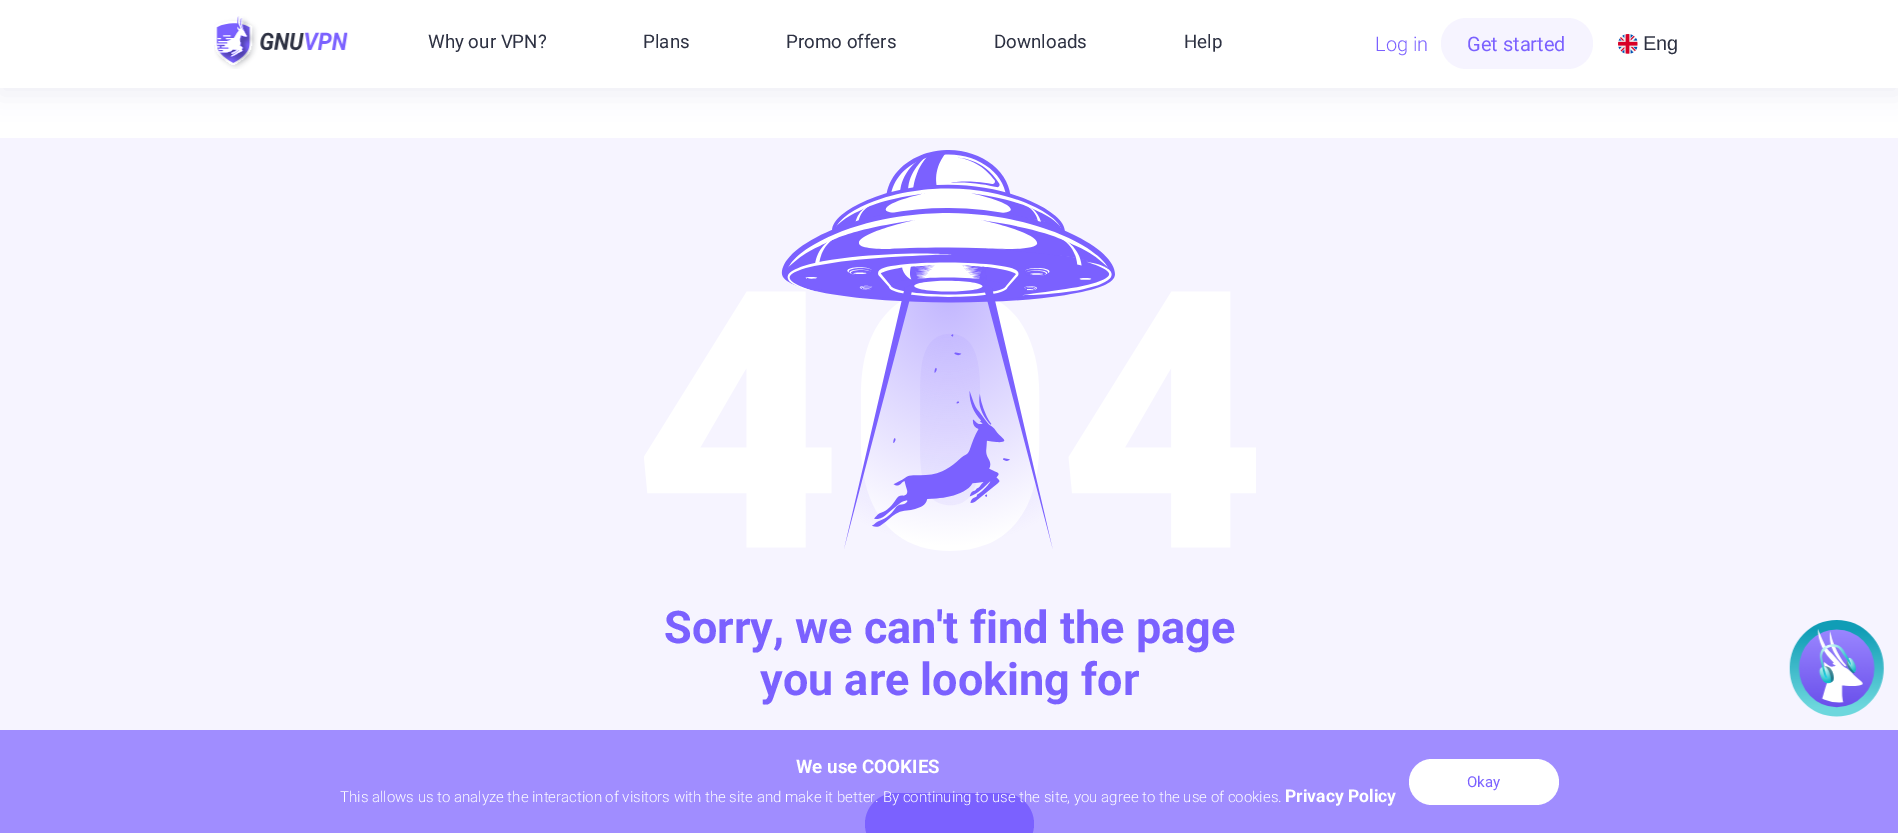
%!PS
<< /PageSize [1898 833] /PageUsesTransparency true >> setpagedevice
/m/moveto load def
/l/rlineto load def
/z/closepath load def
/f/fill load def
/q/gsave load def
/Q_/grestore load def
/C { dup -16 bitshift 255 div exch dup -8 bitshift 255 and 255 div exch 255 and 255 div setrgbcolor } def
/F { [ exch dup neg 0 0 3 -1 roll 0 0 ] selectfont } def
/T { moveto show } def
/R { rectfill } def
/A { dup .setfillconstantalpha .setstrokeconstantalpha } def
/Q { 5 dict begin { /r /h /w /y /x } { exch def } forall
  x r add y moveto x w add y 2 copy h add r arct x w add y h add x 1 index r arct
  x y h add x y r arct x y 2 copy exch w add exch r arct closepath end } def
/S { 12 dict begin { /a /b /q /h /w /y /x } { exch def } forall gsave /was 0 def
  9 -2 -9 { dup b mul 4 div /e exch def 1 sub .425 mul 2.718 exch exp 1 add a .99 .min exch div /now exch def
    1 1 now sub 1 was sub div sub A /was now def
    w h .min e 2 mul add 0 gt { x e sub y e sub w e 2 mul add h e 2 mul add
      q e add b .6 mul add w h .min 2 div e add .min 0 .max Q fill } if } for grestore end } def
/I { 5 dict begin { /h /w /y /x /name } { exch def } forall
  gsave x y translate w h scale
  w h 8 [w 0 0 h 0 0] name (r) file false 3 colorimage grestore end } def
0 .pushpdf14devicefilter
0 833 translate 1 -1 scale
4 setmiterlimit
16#FFFFFF C
0 0 1898 833 R
q
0 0 m 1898 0 l 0 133 l -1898 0 l z 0 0 m 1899 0 l 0 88 l -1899 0 l z eoclip newpath
16#4A558C C
0 6 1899 88 0 12.5 .1 S
Q_
0.85 A
0 87 1898 1 R
1 A
(1.rgb) 214 16 134 53 I
/Roboto-Regular 18.75 F
16#2D3142 C
(Why our VPN?) 428 48 T
(Plans) 643 48 T
(Promo offers) 786 48 T
(Downloads) 994 48 T
(Help) 1184 48 T
/Roboto-Light 20 F
16#7B61FF C
(Log in) 1375 51 T
16#F6F4FF C
1441 18 152 51 25.5 Q f
/Roboto-Regular 20 F
16#7B61FF C
(Get started) 1467 51 T
(2.rgb) 1618 34 20 20 I
/LiberationSans-Regular 20 F
16#2D3142 C
(Eng) 1643 50 T
16#F6F4FF C
0 138 1898 695 R
(3.rgb) 644 150 612 401 I
/Roboto-Bold 45 F
16#7B61FF C
(Sorry, we can't find the page) 664 643 T
(you are looking for) 760 695 T
865 793 169 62 31 Q f
(4.rgb) 1789 620 95 97 I
0.7 A
0 730 1898 103 R
/Roboto-Bold 18.75 F
1 A
16#FFFFFF C
(We use COOKIES) 796 773 T
/Roboto-Light 15 F
(This allows us to analyze the interaction of visitors with the site and make it better. By continuing to use the site, you agree to the use of cookies.) 340 802 T
/Roboto-Bold 17.5 F
(Privacy Policy) 1285 802 T
1409 759 150 46 23 Q f
/Roboto-Regular 15 F
16#7B61FF C
(Okay) 1467 787 T
.poppdf14devicefilter showpage
